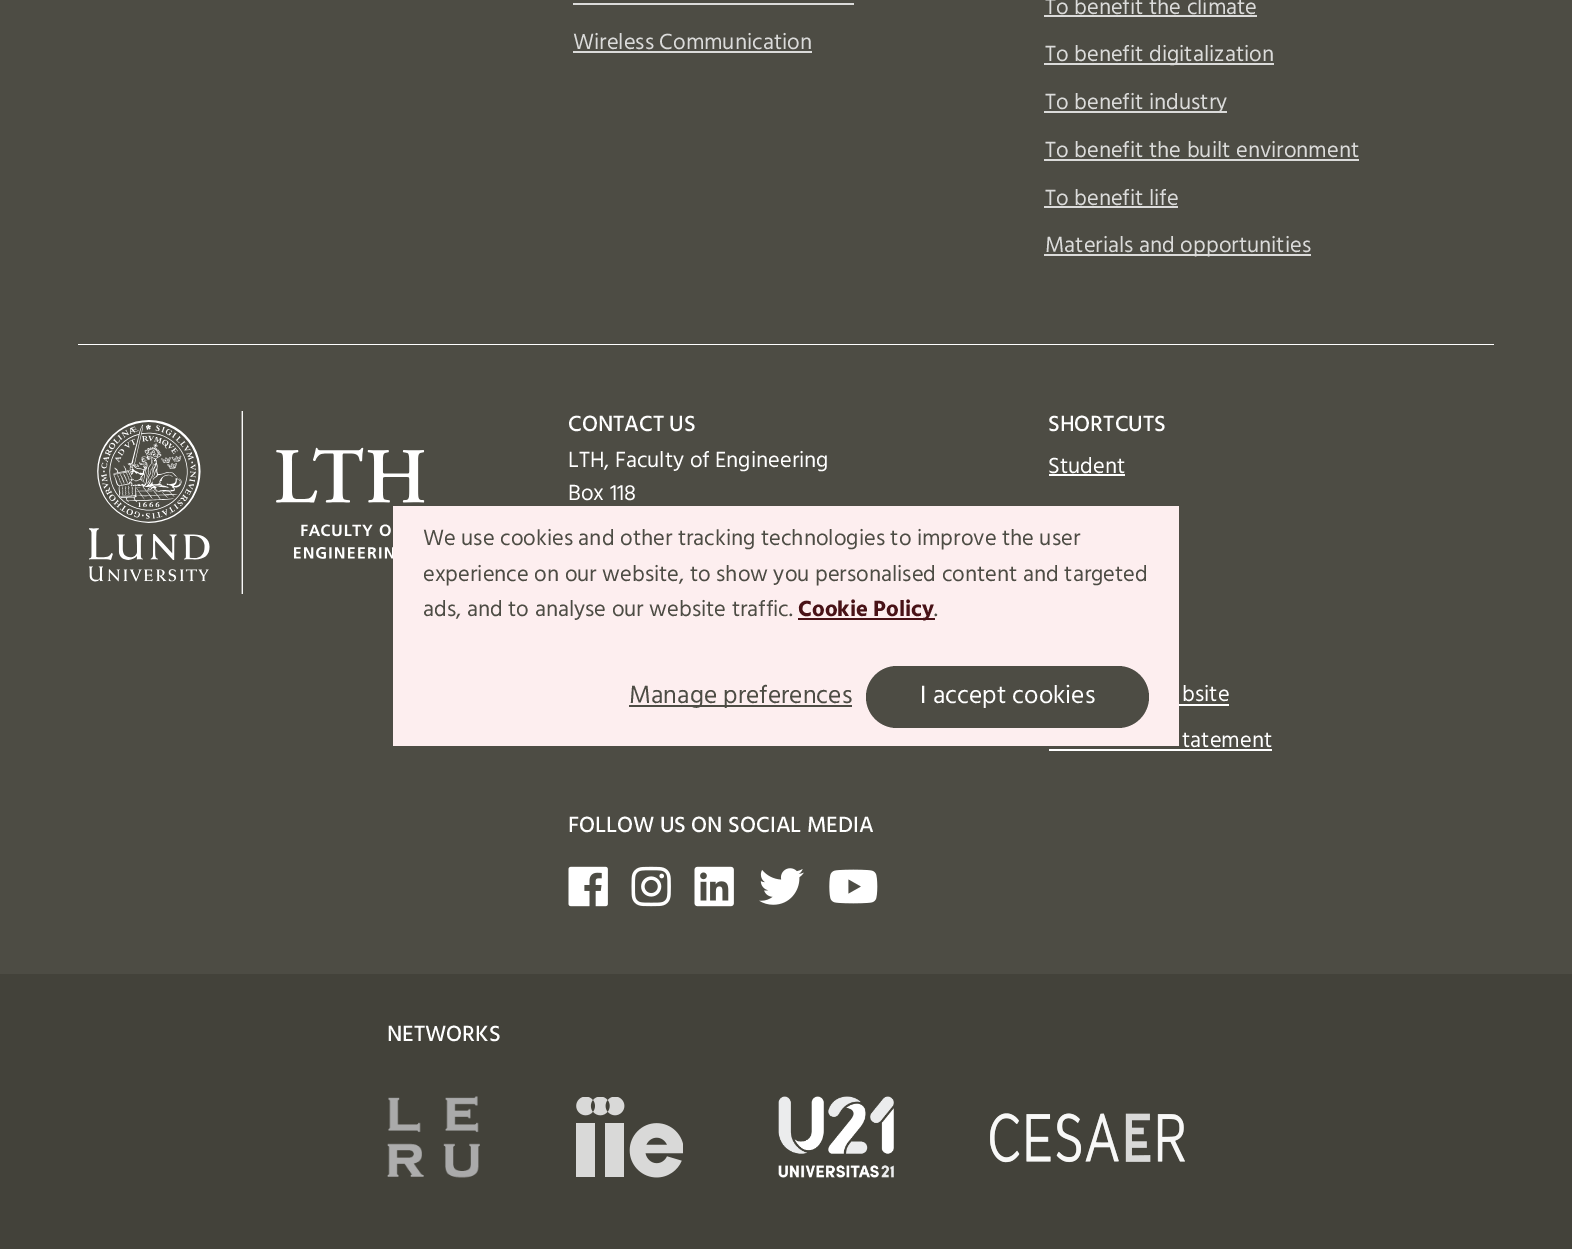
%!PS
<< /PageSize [1572 1249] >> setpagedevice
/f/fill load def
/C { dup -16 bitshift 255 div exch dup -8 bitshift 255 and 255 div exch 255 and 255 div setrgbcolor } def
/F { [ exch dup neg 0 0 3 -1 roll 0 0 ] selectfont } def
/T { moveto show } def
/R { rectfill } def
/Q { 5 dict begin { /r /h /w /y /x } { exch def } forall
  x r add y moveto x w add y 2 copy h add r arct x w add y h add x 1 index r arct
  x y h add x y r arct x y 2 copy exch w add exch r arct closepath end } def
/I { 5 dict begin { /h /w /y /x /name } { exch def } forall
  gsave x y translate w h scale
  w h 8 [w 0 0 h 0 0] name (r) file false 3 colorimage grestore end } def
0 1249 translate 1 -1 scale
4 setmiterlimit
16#4D4C44 C
0 0 1572 1249 R
16#FFFFFF C
78 344 1416 1 R
16#DBDBDA C
573 3 281 2 R
/Hind-Regular 22.5 F
(Wireless Communication) 573 49 T
573 51 239 2 R
(To benefit the climate) 1045 14 T
1044 15 213 2 R
1044 63 230 2 R
(To benefit digitalization) 1045 61 T
1044 111 183 2 R
(To benefit industry) 1045 109 T
(To benefit the built environment) 1045 157 T
1044 159 315 2 R
(To benefit life) 1045 205 T
1044 206 134 2 R
1044 254 267 2 R
(Materials and opportunities) 1045 252 T
(1.rgb) 89 411 336 183 I
/Hind-Medium 22.5 F
16#FFFFFF C
(CONTACT US) 568 431 T
/Hind-Regular 22.5 F
(LTH, Faculty of Engineering) 568 467 T
(Box 118) 568 500 T
/Hind-Medium 22.5 F
(SHORTCUTS) 1048 431 T
/Hind-Regular 22.5 F
(Student) 1048 473 T
1049 474 76 2 R
(bsite) 1182 701 T
1179 704 50 2 R
(tatement) 1182 747 T
1049 749 223 2 R
/Hind-Medium 22.5 F
(FOLLOW US ON SOCIAL MEDIA) 568 832 T
(2.rgb) 568 866 40 41 I
(3.rgb) 631 866 40 41 I
(4.rgb) 694 866 40 41 I
(5.rgb) 759 868 45 37 I
(6.rgb) 829 869 49 35 I
16#43423A C
0 974 1572 275 R
16#FFFFFF C
(NETWORKS) 387 1041 T
(7.rgb) 387 1096 93 82 I
(8.rgb) 576 1097 107 81 I
(9.rgb) 778 1096 116 82 I
(10.rgb) 990 1113 195 50 I
16#FDEEEF C
393 506 786 240 R
/Hind-Regular 22.5 F
16#4D4C44 C
(We use cookies and other tracking technologies to improve the user) 423 545 T
(experience on our website, to show you personalised content and targeted) 423 581 T
(ads, and to analyse our website traffic.) 423 616 T
16#491217 C
798 618 137 2 R
/Hind-Bold 22.5 F
(Cookie Policy) 798 616 T
/Hind-Regular 22.5 F
16#4D4C44 C
(.) 934 616 T
629 705 223 2 R
/Hind-Regular 25.5 F
(Manage preferences) 629 703 T
866 666 283 62 31 Q f
16#FFFFFF C
(I accept cookies) 920 703 T
showpage
